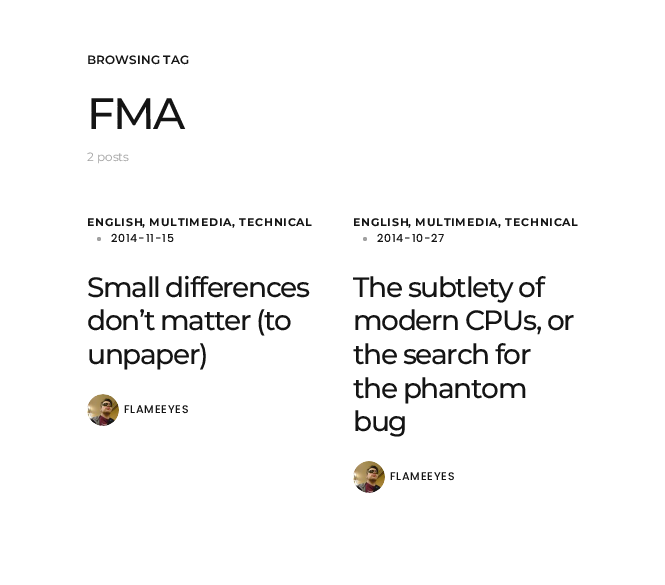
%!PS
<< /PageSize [665 585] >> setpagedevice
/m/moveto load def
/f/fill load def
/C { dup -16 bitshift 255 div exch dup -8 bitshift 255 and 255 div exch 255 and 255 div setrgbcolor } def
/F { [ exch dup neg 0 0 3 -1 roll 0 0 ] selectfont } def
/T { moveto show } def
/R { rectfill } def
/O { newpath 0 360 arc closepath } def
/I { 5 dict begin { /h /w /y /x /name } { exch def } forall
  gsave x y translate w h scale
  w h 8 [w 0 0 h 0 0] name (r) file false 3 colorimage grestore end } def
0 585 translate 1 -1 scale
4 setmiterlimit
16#FFFFFF C
0 0 665 585 R
/Montserrat-SemiBold 12 F
16#141414 C
87 64 m .1 0 (BROWSING TAG) ashow
/Montserrat-Medium 44 F
87 129 m -2 0 (FMA) ashow
/Montserrat-Regular 12 F
16#A1A1A1 C
(2 posts) 87 161 T
/Montserrat-Bold 11 F
16#141414 C
87 226 m .75 0 (ENGLISH) ashow
142 226 m .75 0 (, MULTIMEDIA) ashow
232 226 m .75 0 (, TECHNICAL) ashow
16#A1A1A1 C
99 239 2 O f
/Poppins-Medium 11 F
16#141414 C
111 242 m .75 0 (2014-11-15) ashow
/Montserrat-Medium 28 F
87 297 m -1.4 0 (Small differences) ashow
87 330 m -1.4 0 (don’t matter \(to) ashow
87 364 m -1.4 0 (unpaper\)) ashow
(1.rgb) 87 394 32 32 I
/Poppins-Medium 11 F
124 413 m .75 0 (FLAMEEYES) ashow
/Montserrat-Bold 11 F
353 226 m .75 0 (ENGLISH) ashow
408 226 m .75 0 (, MULTIMEDIA) ashow
498 226 m .75 0 (, TECHNICAL) ashow
16#A1A1A1 C
365 239 2 O f
/Poppins-Medium 11 F
16#141414 C
377 242 m .75 0 (2014-10-27) ashow
/Montserrat-Medium 28 F
353 297 m -1.4 0 (The subtlety of) ashow
353 330 m -1.4 0 (modern CPUs, or) ashow
353 364 m -1.4 0 (the search for) ashow
353 398 m -1.4 0 (the phantom) ashow
353 431 m -1.4 0 (bug) ashow
(2.rgb) 353 461 32 32 I
/Poppins-Medium 11 F
390 480 m .75 0 (FLAMEEYES) ashow
showpage
